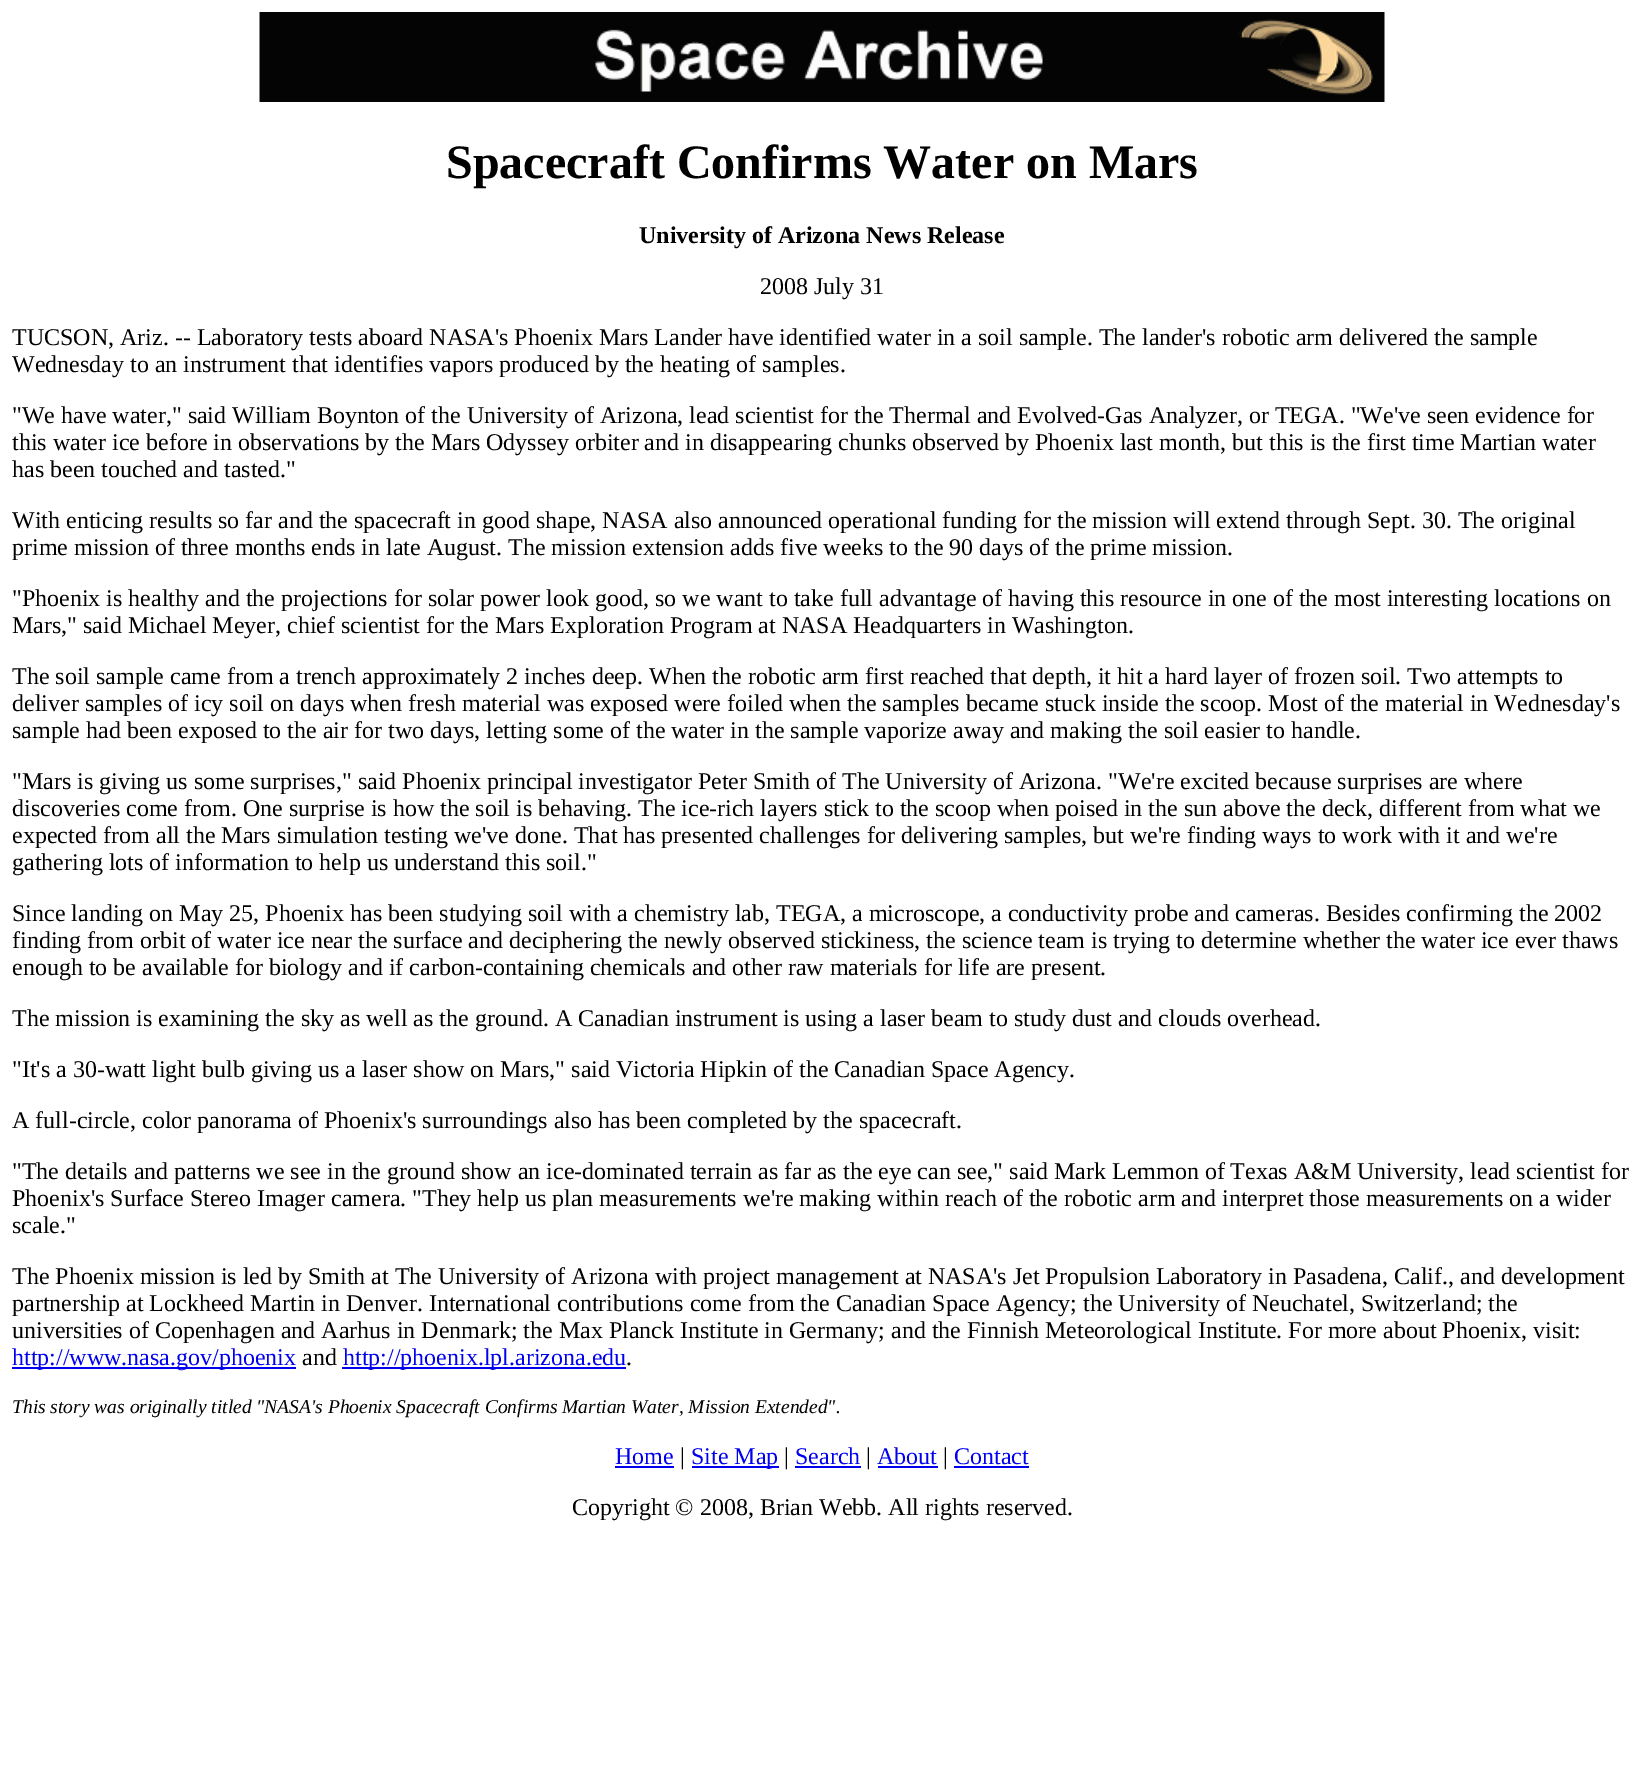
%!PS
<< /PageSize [1643 1784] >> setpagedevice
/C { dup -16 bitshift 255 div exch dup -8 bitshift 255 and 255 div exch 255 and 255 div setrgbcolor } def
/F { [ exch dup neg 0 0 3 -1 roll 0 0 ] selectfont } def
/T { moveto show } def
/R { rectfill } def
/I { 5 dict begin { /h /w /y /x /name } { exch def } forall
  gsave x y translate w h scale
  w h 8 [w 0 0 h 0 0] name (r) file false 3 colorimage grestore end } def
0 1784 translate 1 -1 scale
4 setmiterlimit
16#FFFFFF C
0 0 1643 1784 R
(1.rgb) 259 12 1126 90 I
/LiberationSerif-Bold 48 F
16#000000 C
(Spacecraft Confirms Water on Mars) 446 178 T
/LiberationSerif-Bold 24 F
(University of Arizona News Release) 639 243 T
/LiberationSerif-Regular 24 F
(2008 July 31) 760 294 T
(TUCSON, Ariz. -- Laboratory tests aboard NASA's Phoenix Mars Lander have identified water in a soil sample. The lander's robotic arm delivered the sample) 12 345 T
(Wednesday to an instrument that identifies vapors produced by the heating of samples.) 12 372 T
("We have water," said William Boynton of the University of Arizona, lead scientist for the Thermal and Evolved-Gas Analyzer, or TEGA. "We've seen evidence for) 12 423 T
(this water ice before in observations by the Mars Odyssey orbiter and in disappearing chunks observed by Phoenix last month, but this is the first time Martian water) 12 450 T
(has been touched and tasted.") 12 477 T
(With enticing results so far and the spacecraft in good shape, NASA also announced operational funding for the mission will extend through Sept. 30. The original) 12 528 T
(prime mission of three months ends in late August. The mission extension adds five weeks to the 90 days of the prime mission.) 12 555 T
("Phoenix is healthy and the projections for solar power look good, so we want to take full advantage of having this resource in one of the most interesting locations on) 12 606 T
(Mars," said Michael Meyer, chief scientist for the Mars Exploration Program at NASA Headquarters in Washington.) 12 633 T
(The soil sample came from a trench approximately 2 inches deep. When the robotic arm first reached that depth, it hit a hard layer of frozen soil. Two attempts to) 12 684 T
(deliver samples of icy soil on days when fresh material was exposed were foiled when the samples became stuck inside the scoop. Most of the material in Wednesday's) 12 711 T
(sample had been exposed to the air for two days, letting some of the water in the sample vaporize away and making the soil easier to handle.) 12 738 T
("Mars is giving us some surprises," said Phoenix principal investigator Peter Smith of The University of Arizona. "We're excited because surprises are where) 12 789 T
(discoveries come from. One surprise is how the soil is behaving. The ice-rich layers stick to the scoop when poised in the sun above the deck, different from what we) 12 816 T
(expected from all the Mars simulation testing we've done. That has presented challenges for delivering samples, but we're finding ways to work with it and we're) 12 843 T
(gathering lots of information to help us understand this soil.") 12 870 T
(Since landing on May 25, Phoenix has been studying soil with a chemistry lab, TEGA, a microscope, a conductivity probe and cameras. Besides confirming the 2002) 12 921 T
(finding from orbit of water ice near the surface and deciphering the newly observed stickiness, the science team is trying to determine whether the water ice ever thaws) 12 948 T
(enough to be available for biology and if carbon-containing chemicals and other raw materials for life are present.) 12 975 T
(The mission is examining the sky as well as the ground. A Canadian instrument is using a laser beam to study dust and clouds overhead.) 12 1026 T
("It's a 30-watt light bulb giving us a laser show on Mars," said Victoria Hipkin of the Canadian Space Agency.) 12 1077 T
(A full-circle, color panorama of Phoenix's surroundings also has been completed by the spacecraft.) 12 1128 T
("The details and patterns we see in the ground show an ice-dominated terrain as far as the eye can see," said Mark Lemmon of Texas A&M University, lead scientist for) 12 1179 T
(Phoenix's Surface Stereo Imager camera. "They help us plan measurements we're making within reach of the robotic arm and interpret those measurements on a wider) 12 1206 T
(scale.") 12 1233 T
(The Phoenix mission is led by Smith at The University of Arizona with project management at NASA's Jet Propulsion Laboratory in Pasadena, Calif., and development) 12 1284 T
(partnership at Lockheed Martin in Denver. International contributions come from the Canadian Space Agency; the University of Neuchatel, Switzerland; the) 12 1311 T
(universities of Copenhagen and Aarhus in Denmark; the Max Planck Institute in Germany; and the Finnish Meteorological Institute. For more about Phoenix, visit:) 12 1338 T
16#0000EE C
12 1367 284 2 R
(http://www.nasa.gov/phoenix) 12 1365 T
16#000000 C
(and) 302 1365 T
16#0000EE C
342 1367 284 2 R
(http://phoenix.lpl.arizona.edu) 343 1365 T
16#000000 C
(.) 626 1365 T
/LiberationSerif-Italic 19.5 F
(This story was originally titled "NASA's Phoenix Spacecraft Confirms Martian Water, Mission Extended".) 12 1413 T
/LiberationSerif-Regular 24 F
16#0000EE C
(Home) 615 1464 T
615 1466 59 2 R
16#000000 C
(|) 680 1464 T
16#0000EE C
692 1466 87 2 R
(Site Map) 691 1464 T
16#000000 C
(|) 784 1464 T
16#0000EE C
(Search) 795 1464 T
795 1466 66 2 R
16#000000 C
(|) 866 1464 T
16#0000EE C
(About) 877 1464 T
878 1466 60 2 R
16#000000 C
(|) 943 1464 T
16#0000EE C
(Contact) 954 1464 T
954 1466 75 2 R
16#000000 C
(Copyright © 2008, Brian Webb. All rights reserved.) 572 1515 T
showpage
